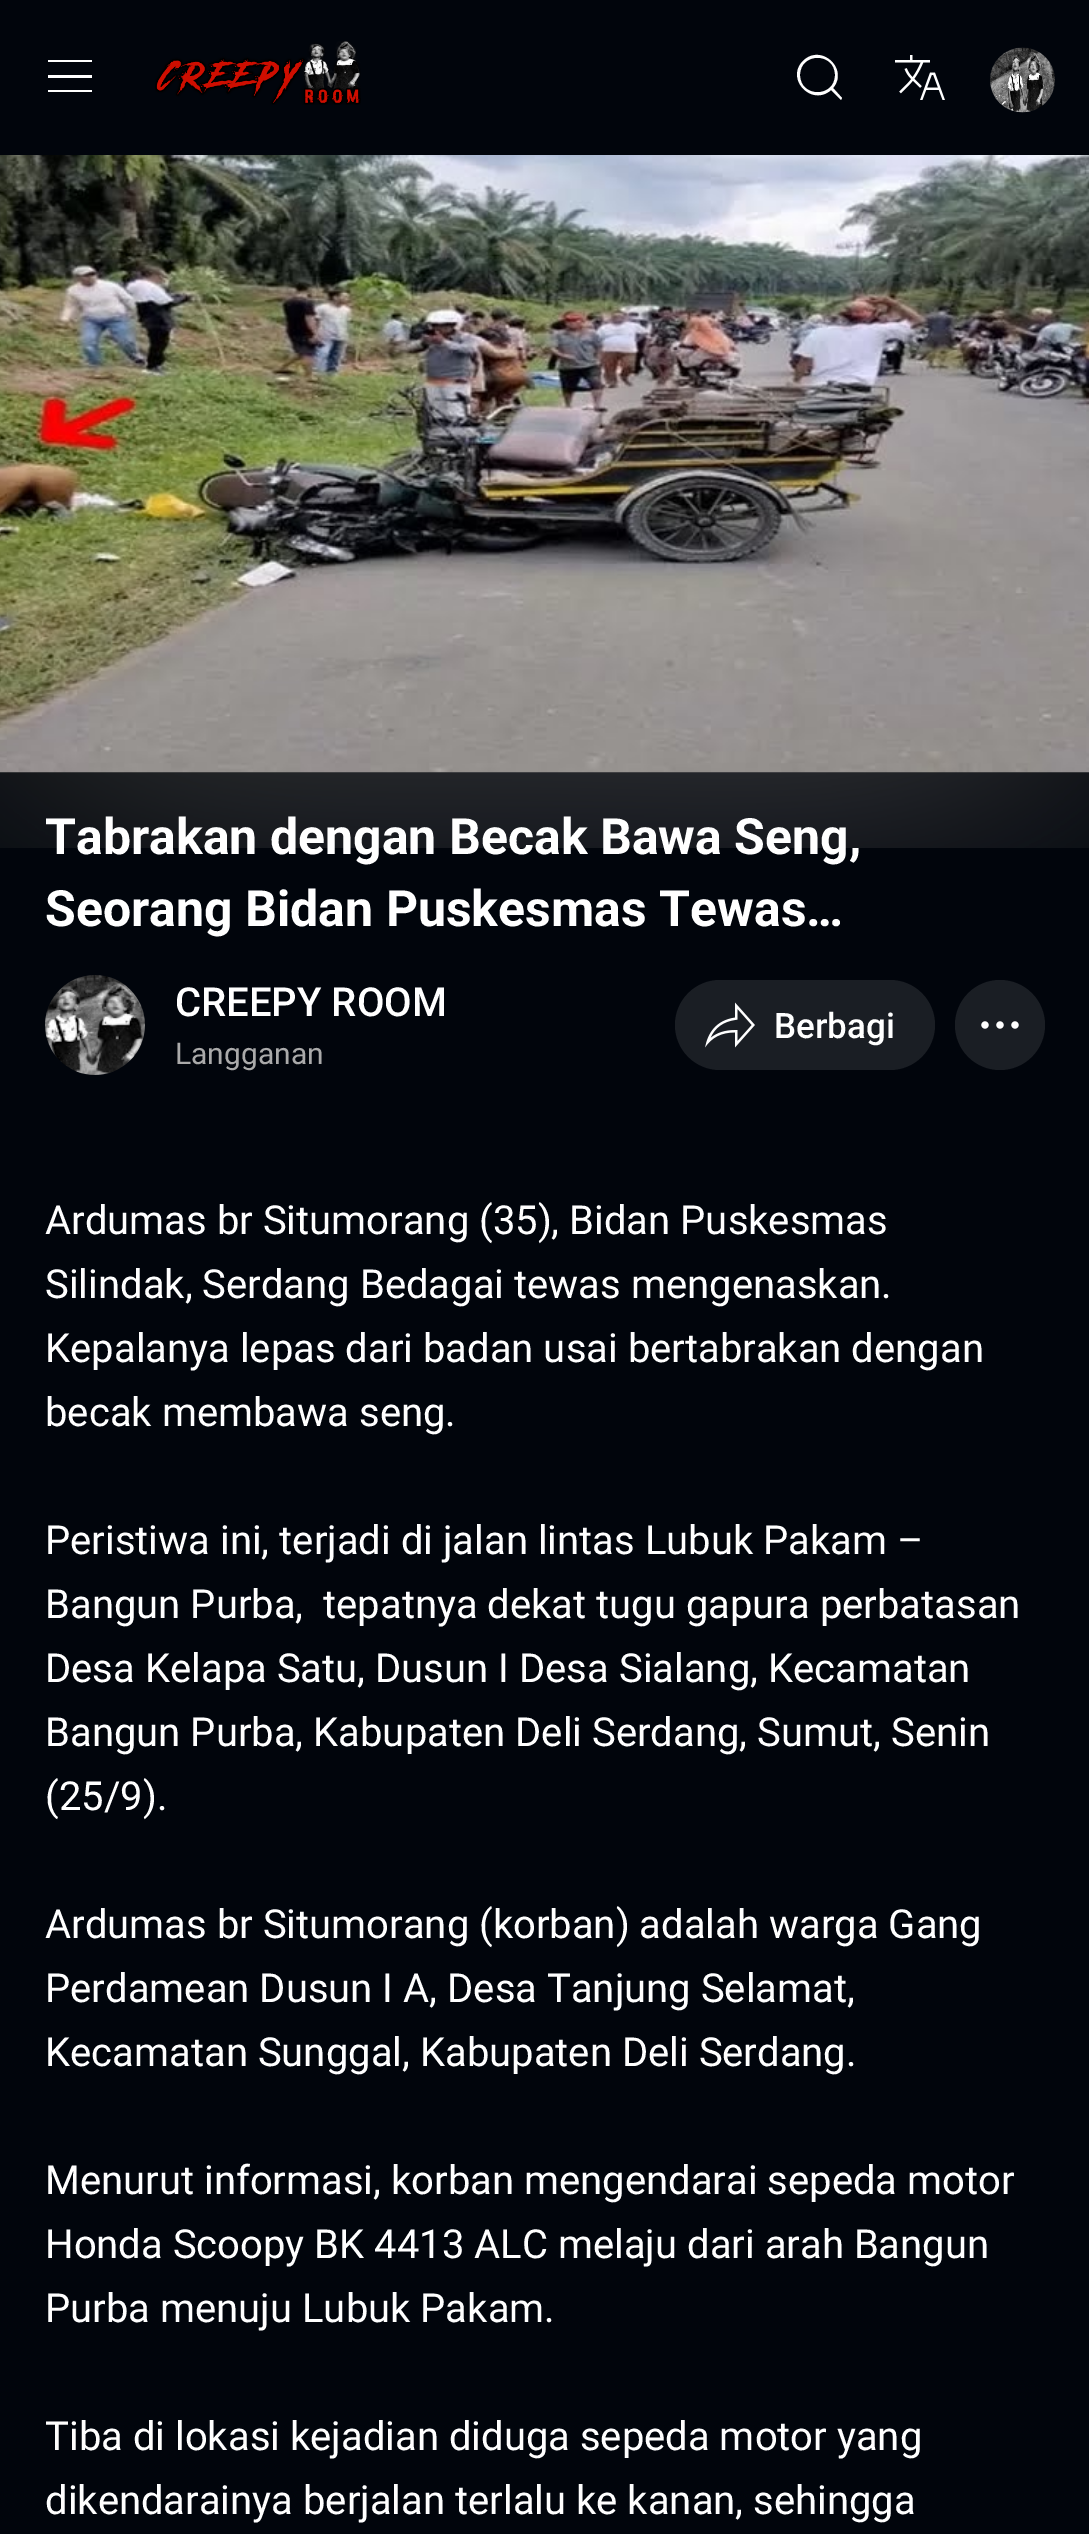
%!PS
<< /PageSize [1089 2534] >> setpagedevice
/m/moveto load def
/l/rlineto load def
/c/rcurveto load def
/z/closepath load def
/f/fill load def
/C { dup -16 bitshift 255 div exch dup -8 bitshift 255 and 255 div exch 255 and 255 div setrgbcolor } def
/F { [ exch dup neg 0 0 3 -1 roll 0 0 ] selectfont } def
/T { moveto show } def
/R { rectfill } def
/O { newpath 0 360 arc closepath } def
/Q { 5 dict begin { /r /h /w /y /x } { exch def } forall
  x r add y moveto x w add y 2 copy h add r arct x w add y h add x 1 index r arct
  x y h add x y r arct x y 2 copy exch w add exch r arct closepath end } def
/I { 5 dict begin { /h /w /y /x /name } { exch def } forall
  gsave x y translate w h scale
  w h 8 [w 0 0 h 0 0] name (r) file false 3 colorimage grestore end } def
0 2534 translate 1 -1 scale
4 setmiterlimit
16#01050C C
0 0 1089 2534 R
16#FFFFFF C
92 62 m -44 0 l 0 -2 l 44 0 l z 92 75 m -44 0 l 0 3 l 44 0 l z 92 90 m -44 0 l 0 2 l 44 0 l z f
(1.rgb) 155 41 206 64 I
831 90 m -19 17 -46 -11 -28 -29 c 18 -18 46 8 30 27 c 9 10 l -1 2 l z 835 75 m 0 23 -35 23 -35 0 c 0 -23 35 -23 35 0 c z eofill
(2.rgb) 895 55 50 45 I
(3.rgb) 990 47 65 66 I
(5.rgb) 0 772 1089 76 I
(4.rgb) 0 155 1089 618 I
/Roboto-Bold 50 F
(Tabrakan dengan Becak Bawa Seng,) 45 854 T
(Seorang Bidan Puskesmas Tewas…) 45 926 T
(6.rgb) 45 975 100 100 I
/Roboto-Medium 40 F
(CREEPY ROOM) 175 1016 T
/Roboto-Regular 30 F
16#AAAAAA C
(Langganan) 175 1064 T
16#1A1E24 C
675 980 260 90 45 Q f
(7.rgb) 705 1002 50 46 I
/Roboto-Medium 35 F
16#FFFFFF C
(Berbagi) 774 1038 T
16#1A1E24 C
1000 1025 45 O f
(8.rgb) 981 1021 38 8 I
/Roboto-Regular 40 F
16#FFFFFF C
(Ardumas br Situmorang \(35\), Bidan Puskesmas) 45 1234 T
(Silindak, Serdang Bedagai tewas mengenaskan.) 45 1298 T
(Kepalanya lepas dari badan usai bertabrakan dengan) 45 1362 T
(becak membawa seng.) 45 1426 T
(Peristiwa ini, terjadi di jalan lintas Lubuk Pakam –) 45 1554 T
(Bangun Purba,  tepatnya dekat tugu gapura perbatasan) 45 1618 T
(Desa Kelapa Satu, Dusun I Desa Sialang, Kecamatan) 45 1682 T
(Bangun Purba, Kabupaten Deli Serdang, Sumut, Senin) 45 1746 T
(\(25/9\).) 45 1810 T
(Ardumas br Situmorang \(korban\) adalah warga Gang) 45 1938 T
(Perdamean Dusun I A, Desa Tanjung Selamat,) 45 2002 T
(Kecamatan Sunggal, Kabupaten Deli Serdang.) 45 2066 T
(Menurut informasi, korban mengendarai sepeda motor) 45 2194 T
(Honda Scoopy BK 4413 ALC melaju dari arah Bangun) 45 2258 T
(Purba menuju Lubuk Pakam.) 45 2322 T
(Tiba di lokasi kejadian diduga sepeda motor yang) 45 2450 T
(dikendarainya berjalan terlalu ke kanan, sehingga) 45 2514 T
showpage
